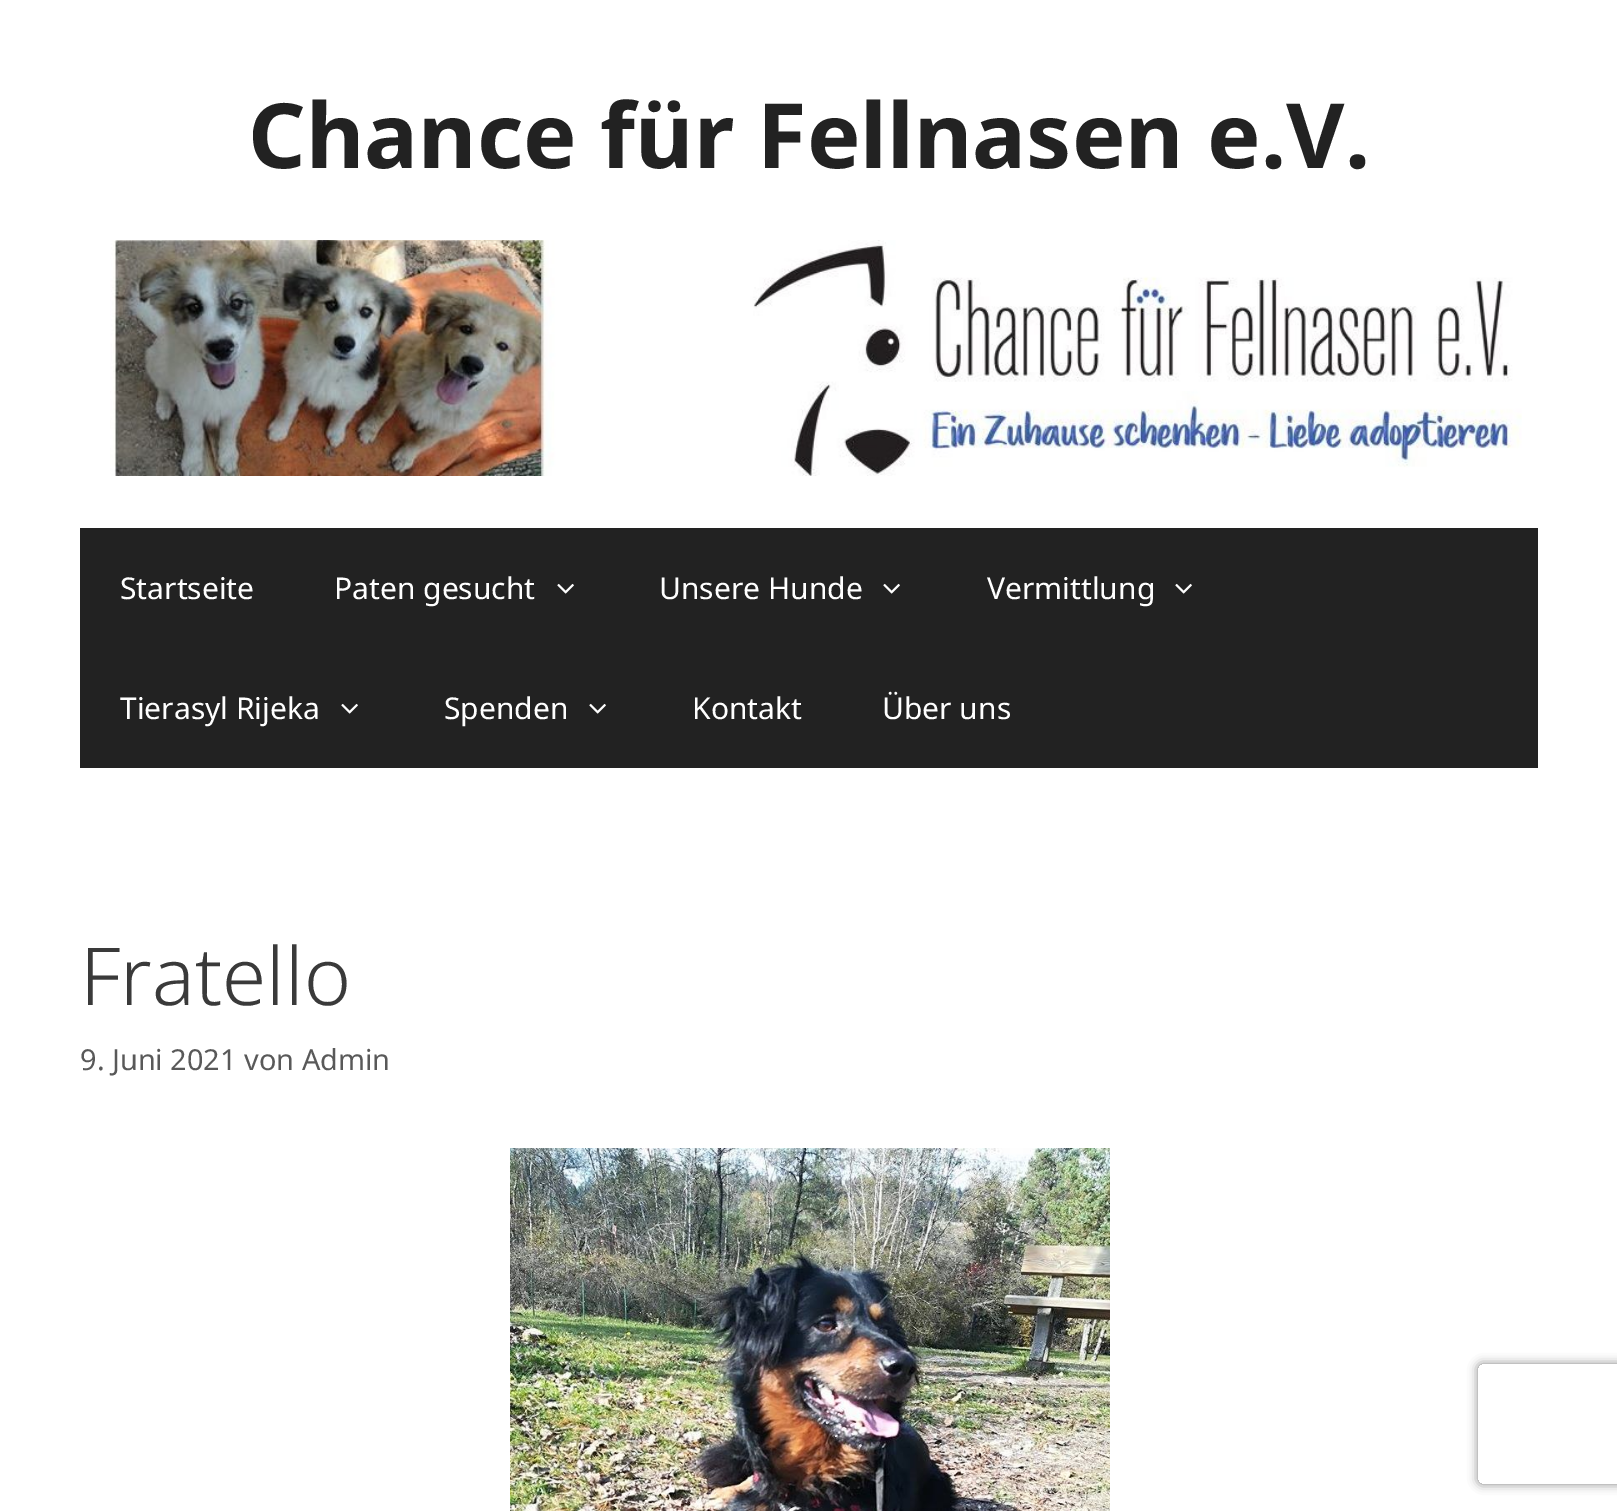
%!PS
<< /PageSize [1617 1511] /PageUsesTransparency true >> setpagedevice
/m/moveto load def
/l/rlineto load def
/c/rcurveto load def
/z/closepath load def
/q/gsave load def
/Q_/grestore load def
/C { dup -16 bitshift 255 div exch dup -8 bitshift 255 and 255 div exch 255 and 255 div setrgbcolor } def
/F { [ exch dup neg 0 0 3 -1 roll 0 0 ] selectfont } def
/T { moveto show } def
/R { rectfill } def
/A { dup .setfillconstantalpha .setstrokeconstantalpha } def
/Q { 5 dict begin { /r /h /w /y /x } { exch def } forall
  x r add y moveto x w add y 2 copy h add r arct x w add y h add x 1 index r arct
  x y h add x y r arct x y 2 copy exch w add exch r arct closepath end } def
/S { 12 dict begin { /a /b /q /h /w /y /x } { exch def } forall gsave /was 0 def
  9 -2 -9 { dup b mul 4 div /e exch def 1 sub .425 mul 2.718 exch exp 1 add a .99 .min exch div /now exch def
    1 1 now sub 1 was sub div sub A /was now def
    w h .min e 2 mul add 0 gt { x e sub y e sub w e 2 mul add h e 2 mul add
      q e add b .6 mul add w h .min 2 div e add .min 0 .max Q fill } if } for grestore end } def
/I { 5 dict begin { /h /w /y /x /name } { exch def } forall
  gsave x y translate w h scale
  w h 8 [w 0 0 h 0 0] name (r) file false 3 colorimage grestore end } def
0 .pushpdf14devicefilter
0 1511 translate 1 -1 scale
4 setmiterlimit
16#FFFFFF C
0 0 1617 1511 R
/NotoSans-Bold 90 F
16#222222 C
(Chance für Fellnasen e.V.) 248 168 T
(1.rgb) 110 240 1412 236 I
80 528 1458 240 R
/NotoSans-Regular 30 F
16#FFFFFF C
(Startseite) 120 599 T
(Paten gesucht) 334 599 T
(2.rgb) 557 583 17 11 I
(Unsere Hunde) 659 599 T
(2.rgb) 883 583 17 11 I
(Vermittlung) 987 599 T
(2.rgb) 1175 583 17 11 I
(Tierasyl Rijeka) 120 719 T
(2.rgb) 341 703 17 11 I
(Spenden) 444 719 T
(2.rgb) 589 703 17 11 I
(Kontakt) 692 719 T
(Über uns) 882 719 T
/NotoSans-Light 80 F
16#3A3A3A C
(Fratello) 80 1005 T
/NotoSans-Regular 28.9 F
16#595959 C
(9. Juni 2021 von Admin) 80 1070 T
(3.rgb) 510 1148 600 363 I
q
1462 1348 m 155 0 l 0 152 l -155 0 l z 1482 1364 m 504 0 l 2 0 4 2 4 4 c 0 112 l 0 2 -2 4 -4 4 c -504 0 l -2 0 -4 -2 -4 -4 c 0 -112 l 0 -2 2 -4 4 -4 c z eoclip newpath
16#808080 C
1478 1364 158 120 4 5 1 S
Q_
.poppdf14devicefilter showpage
